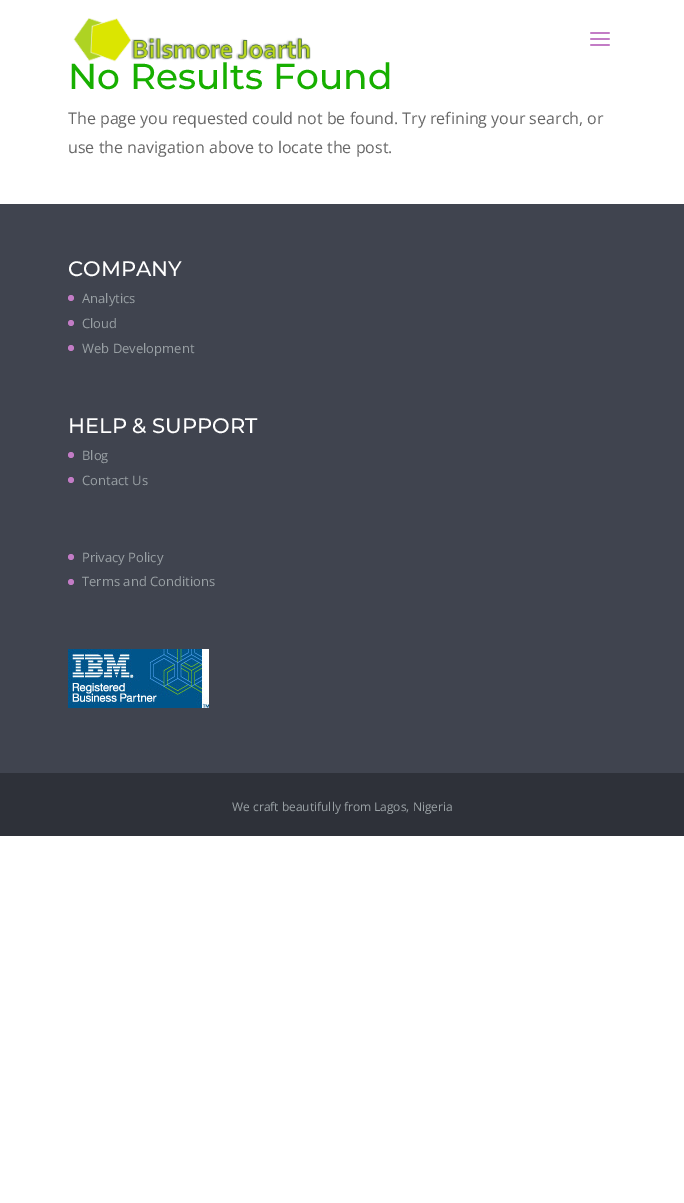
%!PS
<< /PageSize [684 1203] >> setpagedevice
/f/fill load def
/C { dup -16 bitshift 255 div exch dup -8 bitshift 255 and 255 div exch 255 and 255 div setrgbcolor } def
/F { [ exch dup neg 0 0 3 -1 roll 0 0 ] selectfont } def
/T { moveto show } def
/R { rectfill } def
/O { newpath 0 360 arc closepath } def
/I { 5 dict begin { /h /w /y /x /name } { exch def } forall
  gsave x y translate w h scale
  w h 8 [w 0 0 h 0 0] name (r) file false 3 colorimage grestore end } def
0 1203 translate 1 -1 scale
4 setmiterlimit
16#FFFFFF C
0 0 684 1203 R
(1.rgb) 73 18 238 44 I
(2.rgb) 590 32 20 14 I
/Montserrat-Medium 36 F
16#17AF00 C
(No Results Found) 68 89 T
/OpenSans-Regular 16 F
16#666666 C
(The page you requested could not be found. Try refining your search, or) 68 124 T
(use the navigation above to locate the post.) 68 153 T
16#40444F C
0 204 684 569 R
/Montserrat-Medium 21 F
16#FFFFFF C
(COMPANY) 68 276 T
16#C37CC6 C
71 298 3 O f
/OpenSans-Regular 13 F
16#9AA1A5 C
(Analytics) 82 303 T
16#C37CC6 C
71 323 3 O f
16#9AA1A5 C
(Cloud) 82 328 T
16#C37CC6 C
71 348 3 O f
16#9AA1A5 C
(Web Development) 82 353 T
/Montserrat-Medium 21 F
16#FFFFFF C
(HELP & SUPPORT) 68 433 T
16#C37CC6 C
71 455 3 O f
/OpenSans-Regular 13 F
16#9AA1A5 C
(Blog) 82 460 T
16#C37CC6 C
71 480 3 O f
16#9AA1A5 C
(Contact Us) 82 485 T
16#C37CC6 C
71 557 3 O f
16#9AA1A5 C
(Privacy Policy) 82 562 T
16#C37CC6 C
71 582 3 O f
16#9AA1A5 C
(Terms and Conditions) 82 586 T
(3.rgb) 68 649 141 59 I
16#2E3139 C
0 773 684 63 R
/OpenSans-Regular 12 F
16#9AA1A5 C
(We craft beautifully from Lagos, Nigeria) 232 811 T
showpage
